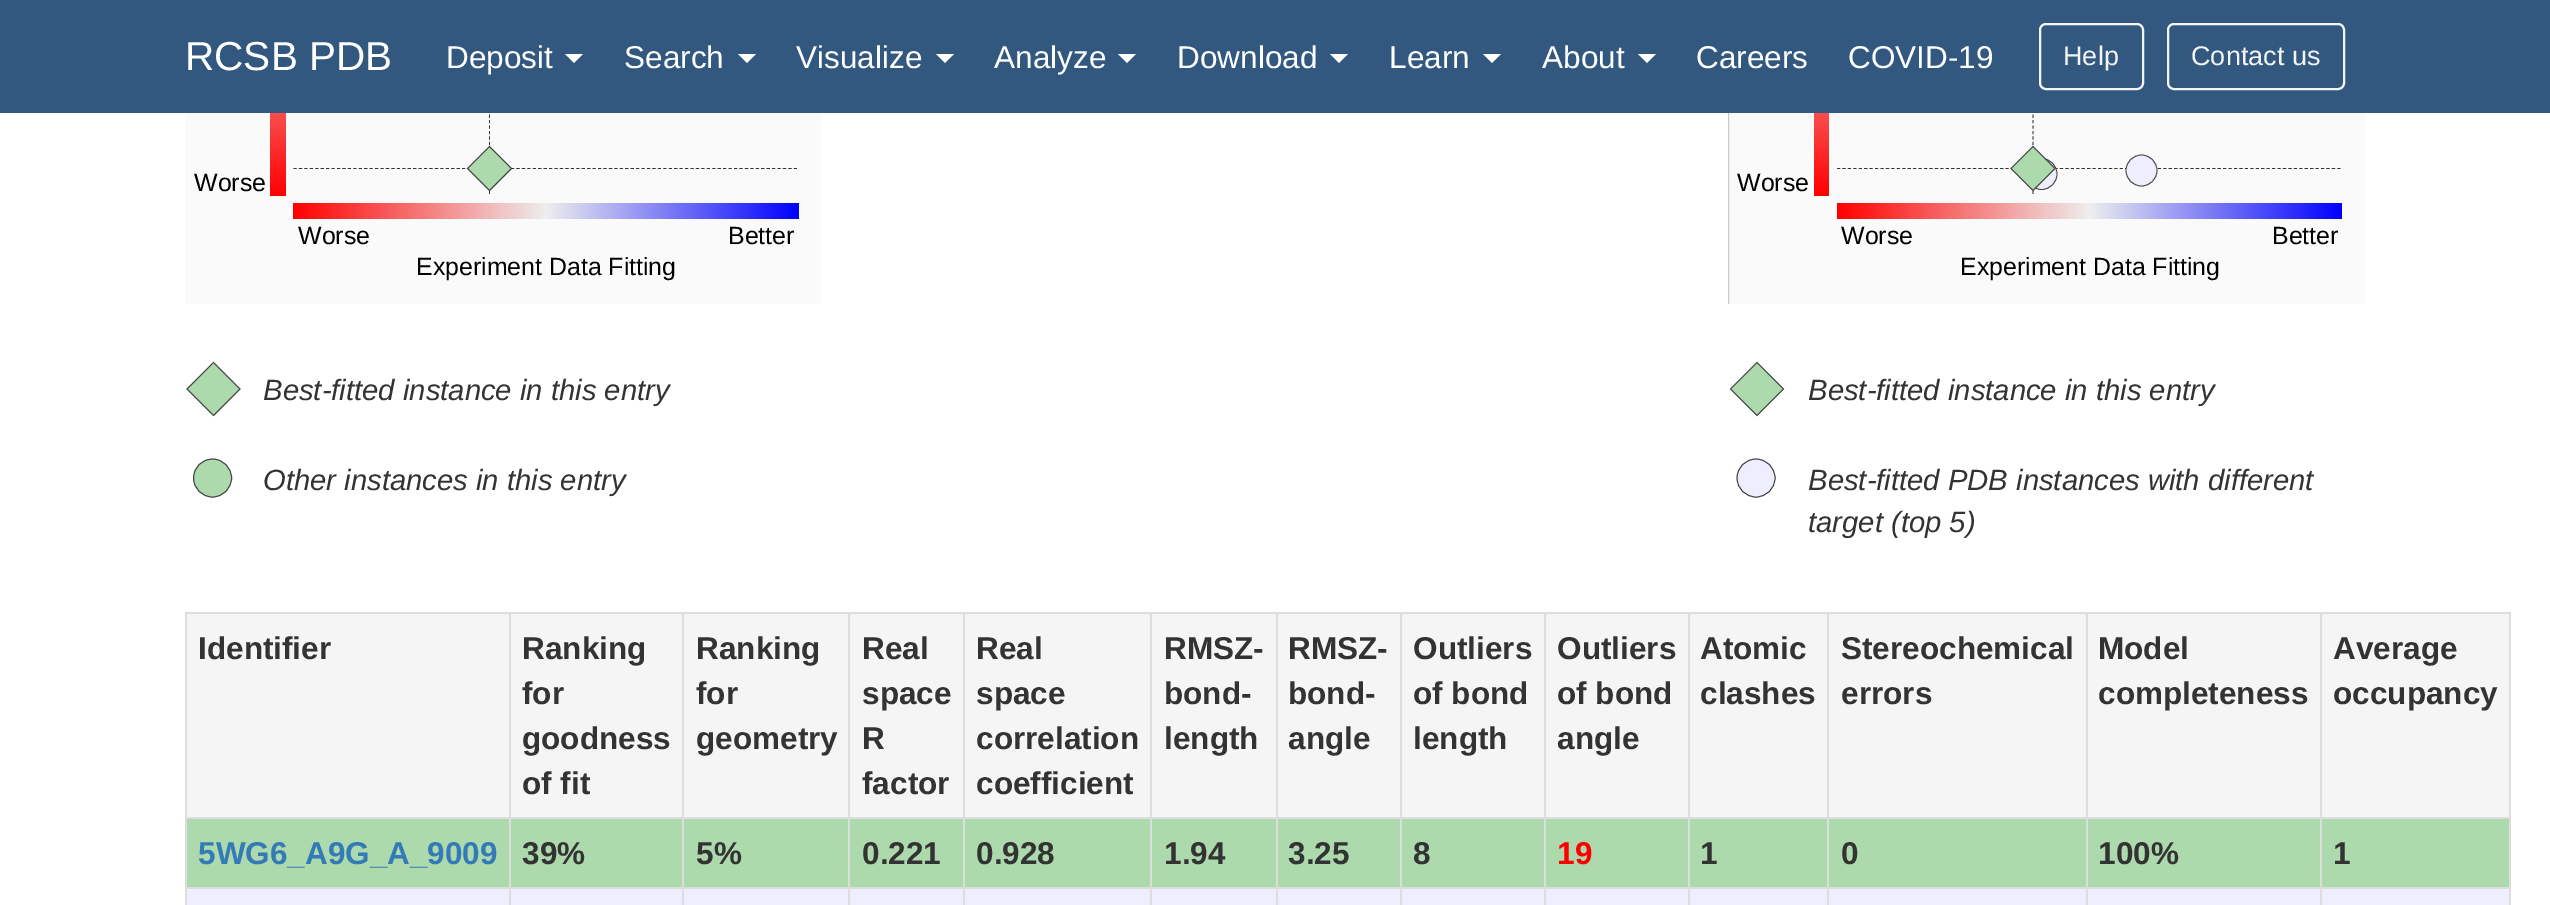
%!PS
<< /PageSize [2550 905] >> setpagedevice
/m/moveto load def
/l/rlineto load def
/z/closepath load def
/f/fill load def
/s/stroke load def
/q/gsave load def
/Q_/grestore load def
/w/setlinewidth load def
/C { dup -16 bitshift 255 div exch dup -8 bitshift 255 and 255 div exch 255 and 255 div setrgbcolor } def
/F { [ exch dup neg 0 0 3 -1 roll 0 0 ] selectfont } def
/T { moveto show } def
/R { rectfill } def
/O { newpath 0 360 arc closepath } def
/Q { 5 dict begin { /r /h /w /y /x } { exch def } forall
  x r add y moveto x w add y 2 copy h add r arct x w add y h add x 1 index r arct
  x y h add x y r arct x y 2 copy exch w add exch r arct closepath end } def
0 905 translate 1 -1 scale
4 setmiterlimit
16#FFFFFF C
0 0 2550 905 R
16#FAFAFA C
185 113 636 191 R
16#333333 C
.8 w
[3.11 2.33] 0 setdash
489.5 -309.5 m 0 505 l s
16#FAFAFA C
1729 113 636 191 R
q
1728 0 637 304 rectclip
16#CCCCCC C
1 w
[] 0 setdash
1728.5 -.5 637 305 rectstroke
Q_
16#333333 C
2033 -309.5 m 0 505 l s
16#325880 C
0 0 2550 113 R
/LiberationSans-Regular 40.5 F
16#FFFFFF C
(RCSB PDB) 185 70 T
/LiberationSans-Regular 31.5 F
(Deposit) 446 68 T
565 54 m 18 0 l -9 9 l z f
(Search) 624 68 T
738 54 m 18 0 l -9 9 l z f
(Visualize) 796 68 T
936 54 m 18 0 l -9 9 l z f
(Analyze) 994 68 T
1118 54 m 18 0 l -9 9 l z f
(Download) 1177 68 T
1330 54 m 18 0 l -9 9 l z f
(Learn) 1389 68 T
1483 54 m 18 0 l -9 9 l z f
(About) 1542 68 T
1638 54 m 18 0 l -9 9 l z f
(Careers) 1696 68 T
(COVID-19) 1848 68 T
16#F3F5F4 C
2 w
[] 0 setdash
2040 24 103 65 6 Q s
/LiberationSans-Regular 27 F
(Help) 2063 65 T
2168 24 176 65 6 Q s
(Contact us) 2191 65 T
/LiberationSans-Regular 24.9 F
16#000000 C
(Worse) 194 191 T
16#333333 C
.8 w
[3.11 2.33] 0 setdash
293.5 168.5 m 505 0 l s
q 270 113 m 16 0 l 0 83 l -16 0 l z clip newpath
<< /ShadingType 2 /ColorSpace /DeviceRGB /Coords [270 196 270 -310] /Extend [true true] /Function << /FunctionType 3 /Domain [0 1] /Functions [<< /FunctionType 2 /Domain [0 1] /C0 [1 0 0] /C1 [.933 .933 .933] /N 1 >> << /FunctionType 2 /Domain [0 1] /C0 [.933 .933 .933] /C1 [0 0 1] /N 1 >>] /Bounds [.5] /Encode [0 1 0 1] >> >> shfill Q_
16#000000 C
(Worse) 298 244 T
q 293 203 m 506 0 l 0 16 l -506 0 l z clip newpath
<< /ShadingType 2 /ColorSpace /DeviceRGB /Coords [293 203 799 203] /Extend [true true] /Function << /FunctionType 3 /Domain [0 1] /Functions [<< /FunctionType 2 /Domain [0 1] /C0 [1 0 0] /C1 [.933 .933 .933] /N 1 >> << /FunctionType 2 /Domain [0 1] /C0 [.933 .933 .933] /C1 [0 0 1] /N 1 >>] /Bounds [.5] /Encode [0 1 0 1] >> >> shfill Q_
(Better) 728 244 T
(Experiment Data Fitting) 416 275 T
16#ADDAAD C
490 147 m 22 22 l -22 22 l -22 -22 l z f
16#444444 C
[] 0 setdash
489.5 146.5 m 22 22 l -22 22 l -22 -22 l z s
16#000000 C
(Worse) 1737 191 T
16#333333 C
[3.11 2.33] 0 setdash
1837 168.5 m 505 0 l s
q 1814 113 m 15 0 l 0 83 l -15 0 l z clip newpath
<< /ShadingType 2 /ColorSpace /DeviceRGB /Coords [1814 196 1814 -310] /Extend [true true] /Function << /FunctionType 3 /Domain [0 1] /Functions [<< /FunctionType 2 /Domain [0 1] /C0 [1 0 0] /C1 [.933 .933 .933] /N 1 >> << /FunctionType 2 /Domain [0 1] /C0 [.933 .933 .933] /C1 [0 0 1] /N 1 >>] /Bounds [.5] /Encode [0 1 0 1] >> >> shfill Q_
16#000000 C
(Worse) 1841 244 T
q 1837 203 m 505 0 l 0 16 l -505 0 l z clip newpath
<< /ShadingType 2 /ColorSpace /DeviceRGB /Coords [1837 203 2342 203] /Extend [true true] /Function << /FunctionType 3 /Domain [0 1] /Functions [<< /FunctionType 2 /Domain [0 1] /C0 [1 0 0] /C1 [.933 .933 .933] /N 1 >> << /FunctionType 2 /Domain [0 1] /C0 [.933 .933 .933] /C1 [0 0 1] /N 1 >>] /Bounds [.5] /Encode [0 1 0 1] >> >> shfill Q_
(Better) 2272 244 T
(Experiment Data Fitting) 1960 275 T
16#EEEEFF C
2141.5 170.5 15.5 O q f Q_
16#444444 C
[] 0 setdash
s
16#EEEEFF C
2041.5 174 15.5 O q f Q_
16#444444 C
s
16#ADDAAD C
2033 147 m 22 22 l -22 22 l -22 -22 l z f
16#444444 C
2033 146.5 m 22 22 l -22 22 l -22 -22 l z s
16#ADDAAD C
214 363 m 26 26 l -26 27 l -27 -27 l z f
16#444444 C
.9 w
213.5 362.5 m 26.5 26.5 l -26.5 26.5 l -26.5 -26.5 l z s
/LiberationSans-Italic 29.25 F
16#333333 C
(Best-fitted instance in this entry) 263 400 T
16#ADDAAD C
212.5 478 19 O q f Q_
16#444444 C
s
16#333333 C
(Other instances in this entry) 263 490 T
16#ADDAAD C
1757 363 m 27 26 l -27 27 l -26 -27 l z f
16#444444 C
1757 362.5 m 26.5 26.5 l -26.5 26.5 l -26.5 -26.5 l z s
16#333333 C
(Best-fitted instance in this entry) 1808 400 T
16#EEEEFF C
1756 478 19 O q f Q_
16#444444 C
s
16#333333 C
(Best-fitted PDB instances with different) 1808 490 T
(target \(top 5\)) 1808 532 T
16#F5F5F5 C
187 614 322 203 R
16#DDDDDD C
2320 612 191 2 R
2320 817 191 2 R
16#ADDAAD C
187 819 2322 68 R
16#DDDDDD C
2320 887 191 2 R
16#EEEEFF C
187 889 2322 16 R
16#DDDDDD C
2320 887 2 18 R
2086 887 236 2 R
2320 817 2 72 R
2086 817 236 2 R
2320 612 2 207 R
2086 612 236 2 R
2086 887 2 18 R
1827 887 261 2 R
2086 817 2 72 R
1827 817 261 2 R
2086 612 2 207 R
1827 612 261 2 R
1827 887 2 18 R
1688 887 141 2 R
1827 817 2 72 R
1688 817 141 2 R
1827 612 2 207 R
1688 612 141 2 R
1688 887 2 18 R
1544 887 146 2 R
1688 817 2 72 R
1544 817 146 2 R
1688 612 2 207 R
1544 612 146 2 R
1544 887 2 18 R
1400 887 146 2 R
1544 817 2 72 R
1400 817 146 2 R
1544 612 2 207 R
1400 612 146 2 R
1400 887 2 18 R
1276 887 126 2 R
1400 817 2 72 R
1276 817 126 2 R
1400 612 2 207 R
1276 612 126 2 R
1276 887 2 18 R
1150 887 128 2 R
1276 817 2 72 R
1150 817 128 2 R
1276 612 2 207 R
1150 612 128 2 R
1150 887 2 18 R
963 887 189 2 R
1150 817 2 72 R
963 817 189 2 R
1150 612 2 207 R
963 612 189 2 R
963 887 2 18 R
848 887 117 2 R
963 817 2 72 R
848 817 117 2 R
963 612 2 207 R
848 612 117 2 R
16#F5F5F5 C
684 614 279 203 R
16#DDDDDD C
848 887 2 18 R
682 887 169 2 R
848 817 2 72 R
682 817 169 2 R
848 612 2 207 R
682 612 169 2 R
682 887 2 18 R
509 887 175 2 R
682 817 2 72 R
509 817 175 2 R
682 612 2 207 R
509 612 175 2 R
509 887 2 18 R
185 887 326 2 R
509 817 2 72 R
185 817 326 2 R
509 612 2 207 R
185 612 326 2 R
185 887 2 18 R
185 817 2 72 R
185 612 2 207 R
/LiberationSans-Bold 31.5 F
16#333333 C
(Identifier) 198 659 T
16#F5F5F5 C
511 614 171 203 R
16#333333 C
(Ranking) 522 659 T
(for) 522 704 T
(goodness) 522 749 T
(of fit) 522 794 T
(Ranking) 696 659 T
(for) 696 704 T
(geometry) 696 749 T
(Real) 862 659 T
(space) 862 704 T
(R) 862 749 T
(factor) 862 794 T
16#F5F5F5 C
965 614 185 203 R
16#333333 C
(Real) 976 659 T
(space) 976 704 T
(correlation) 976 749 T
(coefficient) 976 794 T
16#F5F5F5 C
1152 614 124 203 R
16#333333 C
(RMSZ-) 1164 659 T
(bond-) 1164 704 T
(length) 1164 749 T
16#F5F5F5 C
1278 614 122 203 R
16#333333 C
(RMSZ-) 1288 659 T
(bond-) 1288 704 T
(angle) 1288 749 T
16#F5F5F5 C
1402 614 142 203 R
16#333333 C
(Outliers) 1413 659 T
(of bond) 1413 704 T
(length) 1413 749 T
16#F5F5F5 C
1546 614 142 203 R
16#333333 C
(Outliers) 1557 659 T
(of bond) 1557 704 T
(angle) 1557 749 T
16#F5F5F5 C
1690 614 137 203 R
16#333333 C
(Atomic) 1700 659 T
(clashes) 1700 704 T
16#F5F5F5 C
1829 614 257 203 R
16#333333 C
(Stereochemical) 1841 659 T
(errors) 1841 704 T
16#F5F5F5 C
2088 614 232 203 R
16#333333 C
(Model) 2098 659 T
(completeness) 2098 704 T
16#F5F5F5 C
2322 614 187 203 R
16#DDDDDD C
2509 887 2 18 R
2509 817 2 72 R
2509 612 2 207 R
16#333333 C
(Average) 2333 659 T
(occupancy) 2333 704 T
16#337AB7 C
(5WG6_A9G_A_9009) 198 864 T
16#333333 C
(39%) 522 864 T
(5%) 696 864 T
(0.221) 862 864 T
(0.928) 976 864 T
(1.94) 1164 864 T
(3.25) 1288 864 T
(8) 1413 864 T
16#FF0000 C
(19) 1557 864 T
16#333333 C
(1) 1700 864 T
(0) 1841 864 T
(100%) 2098 864 T
(1) 2333 864 T
showpage
